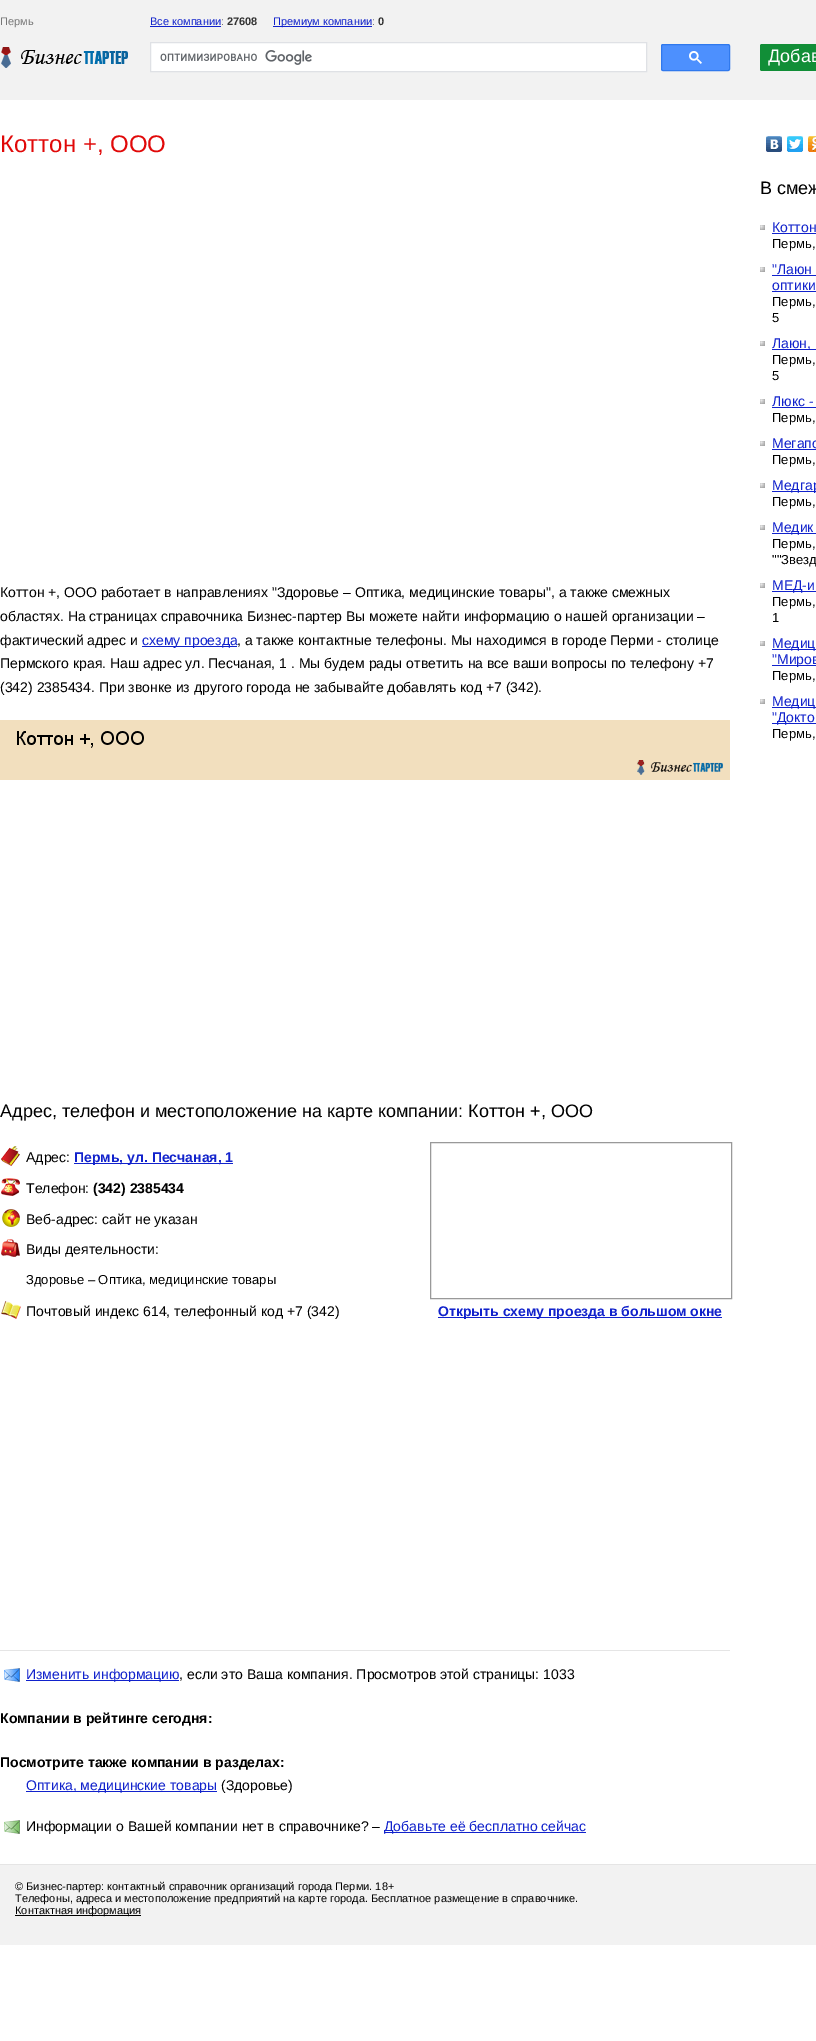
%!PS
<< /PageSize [816 2041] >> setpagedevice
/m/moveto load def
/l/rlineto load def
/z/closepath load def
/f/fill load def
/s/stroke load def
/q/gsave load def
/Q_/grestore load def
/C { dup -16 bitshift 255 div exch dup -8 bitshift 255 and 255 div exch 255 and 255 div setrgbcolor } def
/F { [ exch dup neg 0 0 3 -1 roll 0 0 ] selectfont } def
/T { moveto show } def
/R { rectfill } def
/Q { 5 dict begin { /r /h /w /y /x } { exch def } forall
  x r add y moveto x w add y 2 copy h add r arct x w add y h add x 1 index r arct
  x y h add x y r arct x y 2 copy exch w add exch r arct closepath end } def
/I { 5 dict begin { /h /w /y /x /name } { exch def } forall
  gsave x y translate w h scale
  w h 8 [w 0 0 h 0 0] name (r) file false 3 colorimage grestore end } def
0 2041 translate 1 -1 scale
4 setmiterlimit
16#FFFFFF C
0 0 816 2041 R
16#F2F2F2 C
0 0 816 100 R
/LiberationSans-Regular 11 F
16#777777 C
(Пермь) 0 25 T
16#1122CC C
(Все компании) 150 25 T
150 26 71 1 R
16#777777 C
(:) 221 25 T
/LiberationSans-Bold 11 F
16#333333 C
(27608) 227 25 T
16#1122CC C
273 26 99 1 R
/LiberationSans-Regular 11 F
(Премиум компании) 273 25 T
16#777777 C
(:) 372 25 T
/LiberationSans-Bold 11 F
16#333333 C
(0) 378 25 T
(1.rgb) 1 47 127 21 I
16#FFFFFF C
150.5 42.5 m 496 0 l 0 29 l -496 0 l z q f Q_
16#DFE1E5 C
s
(2.rgb) 160 50 152 15 I
16#4D90FE C
661.5 44.5 68 26 1.5 Q q f Q_
16#3079ED C
s
(3.rgb) 689 51 13 13 I
16#118E37 C
760 44 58 27 2 Q f
/LiberationSans-Regular 18 F
16#FFFFFF C
(Добав) 768 62 T
/LiberationSans-Regular 24 F
16#E10808 C
(Коттон +, ООО) 0 152 T
/LiberationSans-Regular 14 F
16#000000 C
(Коттон +, ООО работает в направлениях "Здоровье – Оптика, медицинские товары", а также смежных) 0 597 T
(областях. На страницах справочника Бизнес-партер Вы можете найти информацию о нашей организации –) 0 621 T
(фактический адрес и) 0 645 T
16#1122CC C
142 646 95 1 R
(схему проезда) 142 645 T
16#000000 C
(, а также контактные телефоны. Мы находимся в городе Перми - столице) 237 645 T
(Пермского края. Наш адрес ул. Песчаная, 1 . Мы будем рады ответить на все ваши вопросы по телефону +7) 0 668 T
(\(342\) 2385434. При звонке из другого города не забывайте добавлять код +7 \(342\).) 0 692 T
(4.rgb) 0 720 730 60 I
/LiberationSans-Regular 18 F
(Адрес, телефон и местоположение на карте компании: Коттон +, ООО) 0 1117 T
(5.rgb) 1 1146 19 20 I
/LiberationSans-Regular 14 F
(Адрес:) 26 1162 T
16#1122CC C
74 1163 159 1 R
/LiberationSans-Bold 14 F
(Пермь, ул. Песчаная, 1) 74 1162 T
(6.rgb) 1 1178 19 18 I
/LiberationSans-Regular 14 F
16#000000 C
(Телефон:) 26 1193 T
/LiberationSans-Bold 14 F
(\(342\) 2385434) 93 1193 T
(7.rgb) 2 1209 18 18 I
/LiberationSans-Regular 14 F
(Веб-адрес: сайт не указан) 26 1224 T
(8.rgb) 1 1239 19 18 I
(Виды деятельности:) 26 1254 T
/LiberationSans-Regular 13 F
(Здоровье – Оптика, медицинские товары) 26 1284 T
(9.rgb) 1 1301 20 18 I
/LiberationSans-Regular 14 F
(Почтовый индекс 614, телефонный код +7 \(342\)) 26 1316 T
16#999999 C
430.5 1142.5 301 156 rectstroke
16#1122CC C
438 1317 284 1 R
/LiberationSans-Bold 14 F
(Открыть схему проезда в большом окне) 438 1316 T
16#E5E5E5 C
0 1650 730 1 R
(10.rgb) 4 1668 16 14 I
16#1122CC C
26 1680 153 1 R
/LiberationSans-Regular 14 F
(Изменить информацию) 26 1679 T
16#000000 C
(, если это Ваша компания. Просмотров этой страницы: 1033) 179 1679 T
/LiberationSans-Bold 14 F
(Компании в рейтинге сегодня:) 0 1723 T
(Посмотрите также компании в разделах:) 0 1767 T
16#1122CC C
26 1791 191 1 R
/LiberationSans-Regular 14 F
(Оптика, медицинские товары) 26 1790 T
16#000000 C
(\(Здоровье\)) 221 1790 T
(11.rgb) 4 1820 16 14 I
(Информации о Вашей компании нет в справочнике? –) 26 1831 T
16#1122CC C
384 1832 202 1 R
(Добавьте её бесплатно сейчас) 384 1831 T
(12.rgb) 766 136 16 16 I
(13.rgb) 787 136 16 16 I
(14.rgb) 808 136 8 16 I
/LiberationSans-Regular 18 F
16#000000 C
(В смеж) 760 194 T
(15.rgb) 760 225 5 5 I
/LiberationSans-Regular 14 F
16#1122CC C
(Коттон) 772 232 T
772 233 44 1 R
/LiberationSans-Regular 13 F
16#000000 C
(Пермь,) 772 248 T
(15.rgb) 760 267 5 5 I
/LiberationSans-Regular 14 F
16#1122CC C
("Лаюн) 772 274 T
772 275 44 1 R
(оптики) 772 290 T
772 291 44 1 R
/LiberationSans-Regular 13 F
16#000000 C
(Пермь,) 772 306 T
(5) 772 322 T
(15.rgb) 760 341 5 5 I
16#1122CC C
772 349 44 1 R
/LiberationSans-Regular 14 F
(Лаюн,) 772 348 T
/LiberationSans-Regular 13 F
16#000000 C
(Пермь,) 772 364 T
(5) 772 380 T
(15.rgb) 760 399 5 5 I
/LiberationSans-Regular 14 F
16#1122CC C
(Люкс -) 772 406 T
772 407 44 1 R
/LiberationSans-Regular 13 F
16#000000 C
(Пермь,) 772 422 T
(15.rgb) 760 441 5 5 I
/LiberationSans-Regular 14 F
16#1122CC C
(Мегапо) 772 448 T
772 449 44 1 R
/LiberationSans-Regular 13 F
16#000000 C
(Пермь,) 772 464 T
(15.rgb) 760 483 5 5 I
16#1122CC C
772 491 44 1 R
/LiberationSans-Regular 14 F
(Медгар) 772 490 T
/LiberationSans-Regular 13 F
16#000000 C
(Пермь,) 772 506 T
(15.rgb) 760 525 5 5 I
16#1122CC C
772 533 44 1 R
/LiberationSans-Regular 14 F
(Медик) 772 532 T
/LiberationSans-Regular 13 F
16#000000 C
(Пермь,) 772 548 T
(""Звезд) 772 564 T
(15.rgb) 760 583 5 5 I
16#1122CC C
772 591 44 1 R
/LiberationSans-Regular 14 F
(МЕД-и) 772 590 T
/LiberationSans-Regular 13 F
16#000000 C
(Пермь,) 772 606 T
(1) 772 622 T
(15.rgb) 760 641 5 5 I
16#1122CC C
772 649 44 1 R
/LiberationSans-Regular 14 F
(Медиц) 772 648 T
772 665 44 1 R
("Миров) 772 664 T
/LiberationSans-Regular 13 F
16#000000 C
(Пермь,) 772 680 T
(15.rgb) 760 699 5 5 I
16#1122CC C
772 707 44 1 R
/LiberationSans-Regular 14 F
(Медиц) 772 706 T
772 723 44 1 R
("Докто) 772 722 T
/LiberationSans-Regular 13 F
16#000000 C
(Пермь,) 772 738 T
16#F2F2F2 C
0 1865 816 80 R
16#E5E5E5 C
0 1864 816 1 R
/LiberationSans-Regular 11 F
16#000000 C
(© Бизнес-партер: контактный справочник организаций города Перми. 18+) 15 1890 T
(Телефоны, адреса и местоположение предприятий на карте города. Бесплатное размещение в справочнике.) 15 1902 T
15 1915 126 1 R
(Контактная информация) 15 1914 T
showpage
